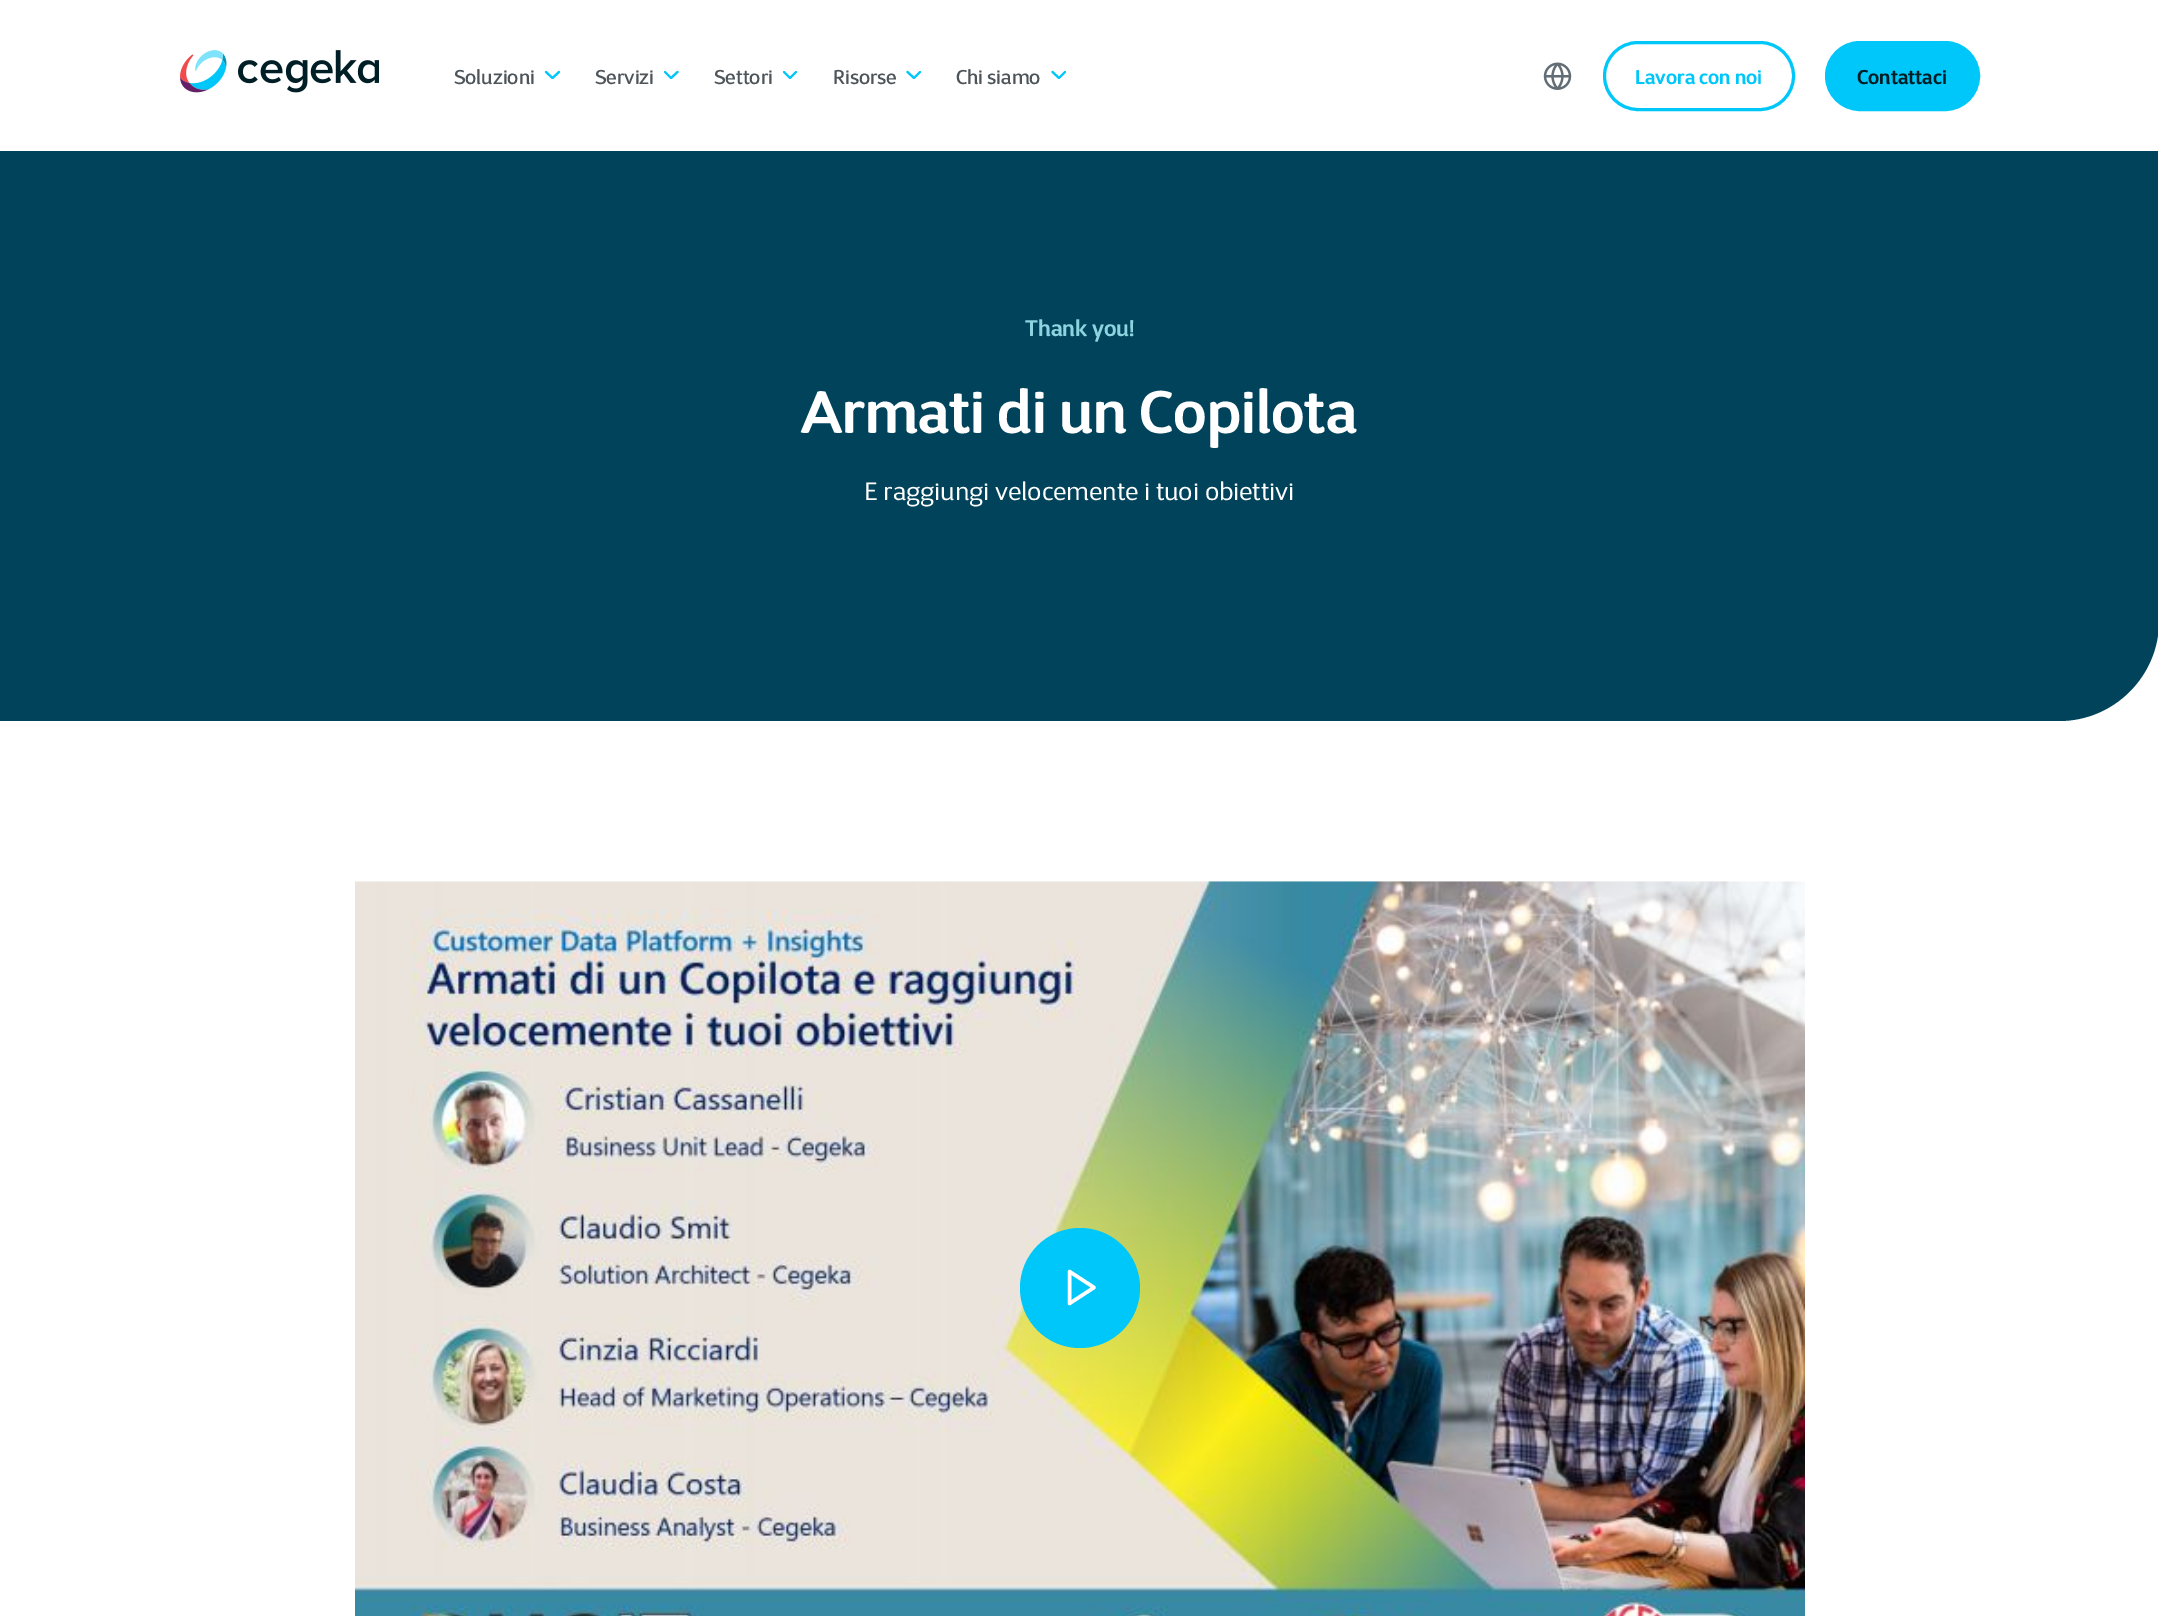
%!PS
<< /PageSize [2158 1616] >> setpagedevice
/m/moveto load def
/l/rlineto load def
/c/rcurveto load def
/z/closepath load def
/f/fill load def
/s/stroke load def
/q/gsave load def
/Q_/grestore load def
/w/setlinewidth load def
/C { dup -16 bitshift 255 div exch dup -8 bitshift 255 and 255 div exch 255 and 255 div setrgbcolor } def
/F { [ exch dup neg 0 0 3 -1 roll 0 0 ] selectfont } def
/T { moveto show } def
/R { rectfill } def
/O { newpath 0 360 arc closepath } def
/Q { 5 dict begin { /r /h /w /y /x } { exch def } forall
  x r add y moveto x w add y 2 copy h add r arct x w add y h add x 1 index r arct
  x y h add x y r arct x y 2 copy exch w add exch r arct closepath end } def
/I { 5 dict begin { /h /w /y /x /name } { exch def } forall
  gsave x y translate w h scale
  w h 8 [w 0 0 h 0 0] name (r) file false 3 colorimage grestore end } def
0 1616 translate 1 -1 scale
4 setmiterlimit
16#FFFFFF C
0 0 2158 1616 R
(1.rgb) 180 50 199 43 I
/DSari-Regular 20 F
16#4D555B C
(Soluzioni) 454 84 T
16#00C7F9 C
2.1 w
1 setlinecap
1 setlinejoin
546 72 m 6.5 6 l 6.5 -6 l s
16#4D555B C
(Servizi) 595 84 T
16#00C7F9 C
665 72 m 6 6 l 6.5 -6 l s
16#4D555B C
(Settori) 714 84 T
16#00C7F9 C
784 72 m 6 6 l 6 -6 l s
16#4D555B C
(Risorse) 833 84 T
16#00C7F9 C
907.5 72 m 6.5 6 l 6 -6 l s
16#4D555B C
(Chi siamo) 956 84 T
16#00C7F9 C
1052.5 72 m 6.5 6 l 6 -6 l s
(2.rgb) 1543 62 29 28 I
3 w
0 setlinecap
0 setlinejoin
1604.5 42.5 189 67 33.5 Q s
/DSari-Medium 20 F
(Lavora con noi) 1635 84 T
1826.5 42.5 152 67 33.5 Q q f Q_
s
16#001E25 C
(Contattaci) 1857 84 T
16#00435B C
0 151 m 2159 0 l 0 470 l 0 55 -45 100 -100 100 c -2059 0 l z f
/DSari-Medium 22.5 F
16#8DD4E0 C
(Thank you!) 1025 336 T
/DSari-Medium 60 F
16#FFFFFF C
(Armati di un Copilota) 801 433 T
/DSari-Light 25 F
(E raggiungi velocemente i tuoi obiettivi) 864 500 T
(3.rgb) 355 881 1450 735 I
16#00C7F9 C
1080 1288 60 O f
16#FFFFFF C
3.5 w
1 setlinecap
1 setlinejoin
1069.5 1271.5 m 24.5 16 l -24.5 16 l z s
showpage
